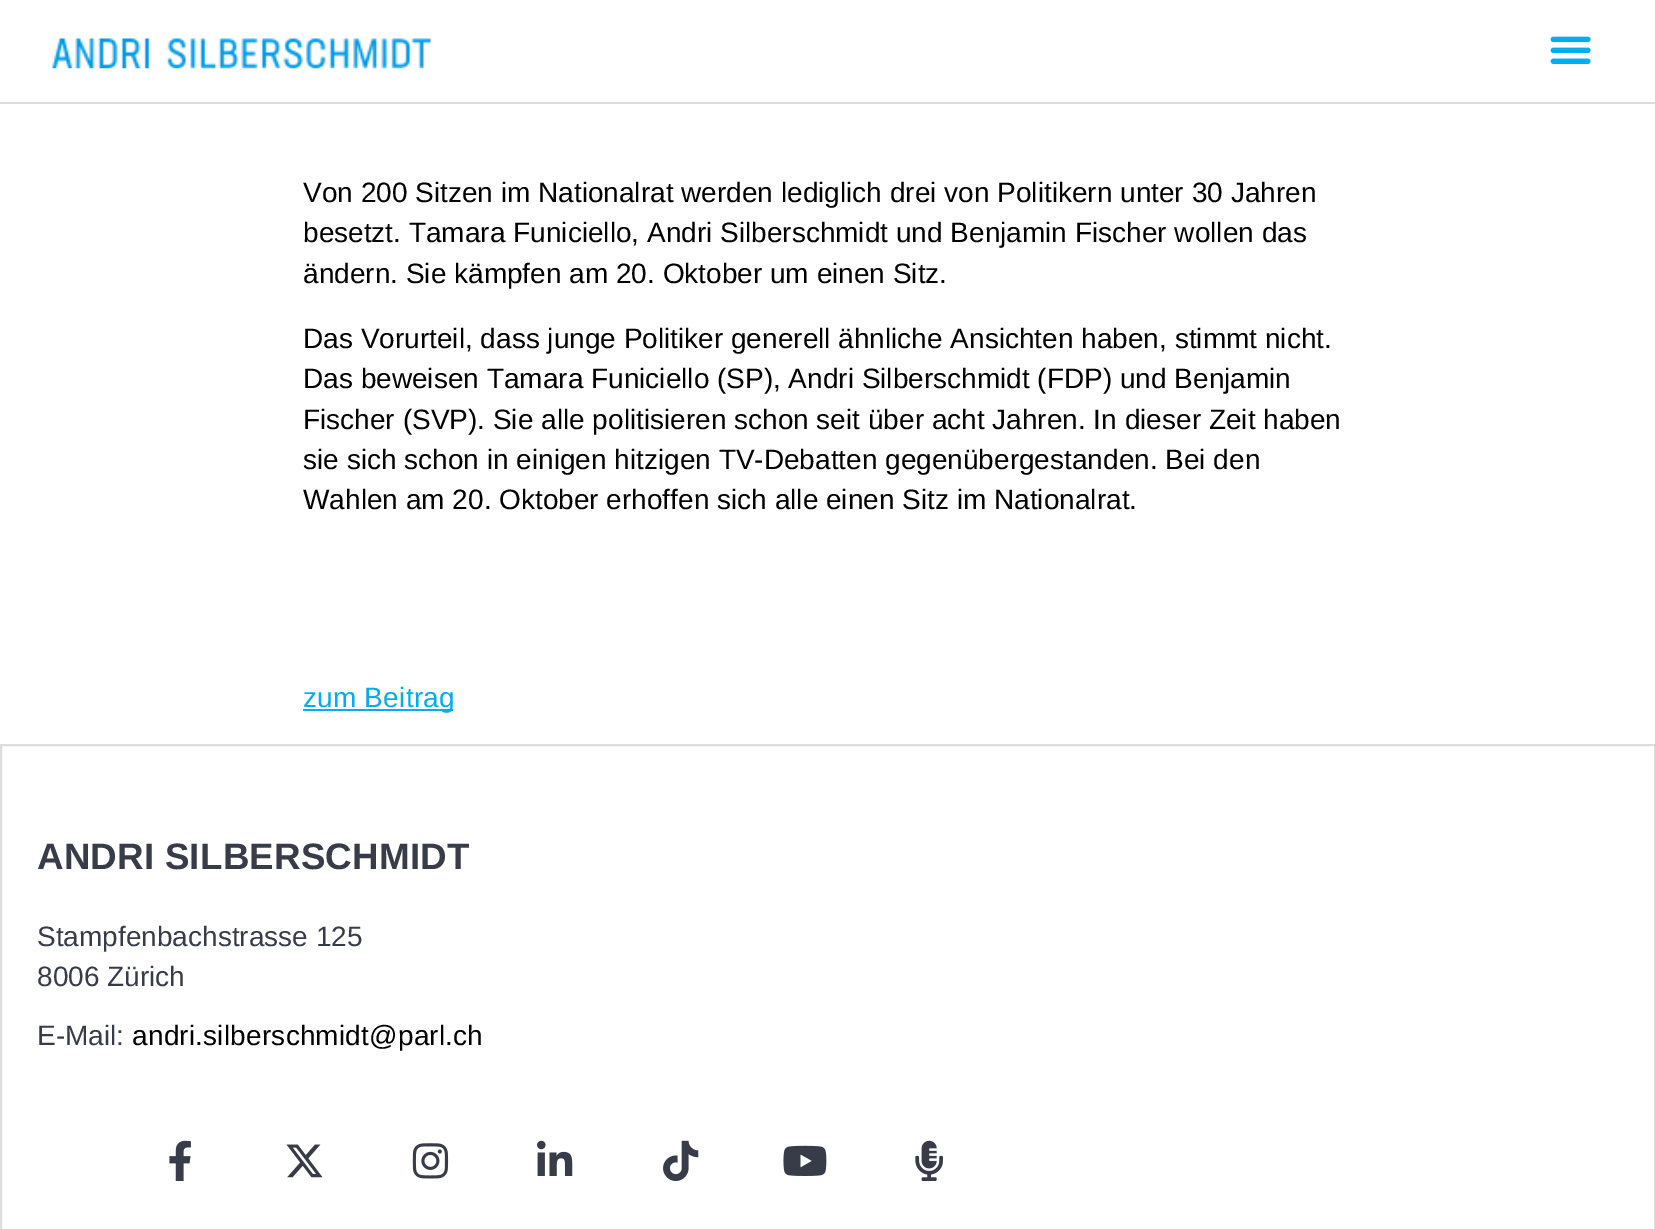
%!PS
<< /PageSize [1655 1229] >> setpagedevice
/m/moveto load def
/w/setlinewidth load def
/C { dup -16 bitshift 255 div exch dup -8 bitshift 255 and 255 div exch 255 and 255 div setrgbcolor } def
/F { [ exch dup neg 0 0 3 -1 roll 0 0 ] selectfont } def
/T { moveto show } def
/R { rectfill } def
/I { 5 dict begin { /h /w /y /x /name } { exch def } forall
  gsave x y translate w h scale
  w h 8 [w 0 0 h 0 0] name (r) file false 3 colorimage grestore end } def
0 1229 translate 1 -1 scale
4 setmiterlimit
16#FFFFFF C
0 0 1655 1229 R
16#DDDDDD C
0 102 1655 2 R
(1.rgb) 52 38 379 31 I
(2.rgb) 1550 36 41 28 I
/LiberationSans-Regular 28 F
16#000000 C
(Von 200 Sitzen im Nationalrat werden lediglich drei von Politikern unter 30 Jahren) 303 202 T
(besetzt. Tamara Funiciello, Andri Silberschmidt und Benjamin Fischer wollen das) 303 242 T
(ändern. Sie kämpfen am 20. Oktober um einen Sitz.) 303 283 T
(Das Vorurteil, dass junge Politiker generell ähnliche Ansichten haben, stimmt nicht.) 303 348 T
(Das beweisen Tamara Funiciello \(SP\), Andri Silberschmidt \(FDP\) und Benjamin) 303 388 T
(Fischer \(SVP\). Sie alle politisieren schon seit über acht Jahren. In dieser Zeit haben) 303 429 T
(sie sich schon in einigen hitzigen TV-Debatten gegenübergestanden. Bei den) 303 469 T
(Wahlen am 20. Oktober erhoffen sich alle einen Sitz im Nationalrat.) 303 509 T
16#00AEEF C
303 709 150 2 R
303 707 m .2 0 (zum Beitrag) ashow
16#DDDDDD C
2 w
1 745 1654 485 rectstroke
/LiberationSans-Bold 36.75 F
16#373C48 C
37 869 m .2 0 (ANDRI SILBERSCHMIDT) ashow
/LiberationSans-Regular 28 F
(Stampfenbachstrasse 125) 37 946 T
(8006 Zürich) 37 986 T
(E-Mail:) 37 1045 T
16#000000 C
132 1045 m .2 0 (andri.silberschmidt@parl.ch) ashow
(3.rgb) 169 1140 22 41 I
(4.rgb) 286 1144 37 34 I
(5.rgb) 412 1143 37 36 I
(6.rgb) 537 1140 36 36 I
(7.rgb) 663 1140 36 41 I
(8.rgb) 783 1145 44 31 I
(9.rgb) 915 1140 28 41 I
showpage
